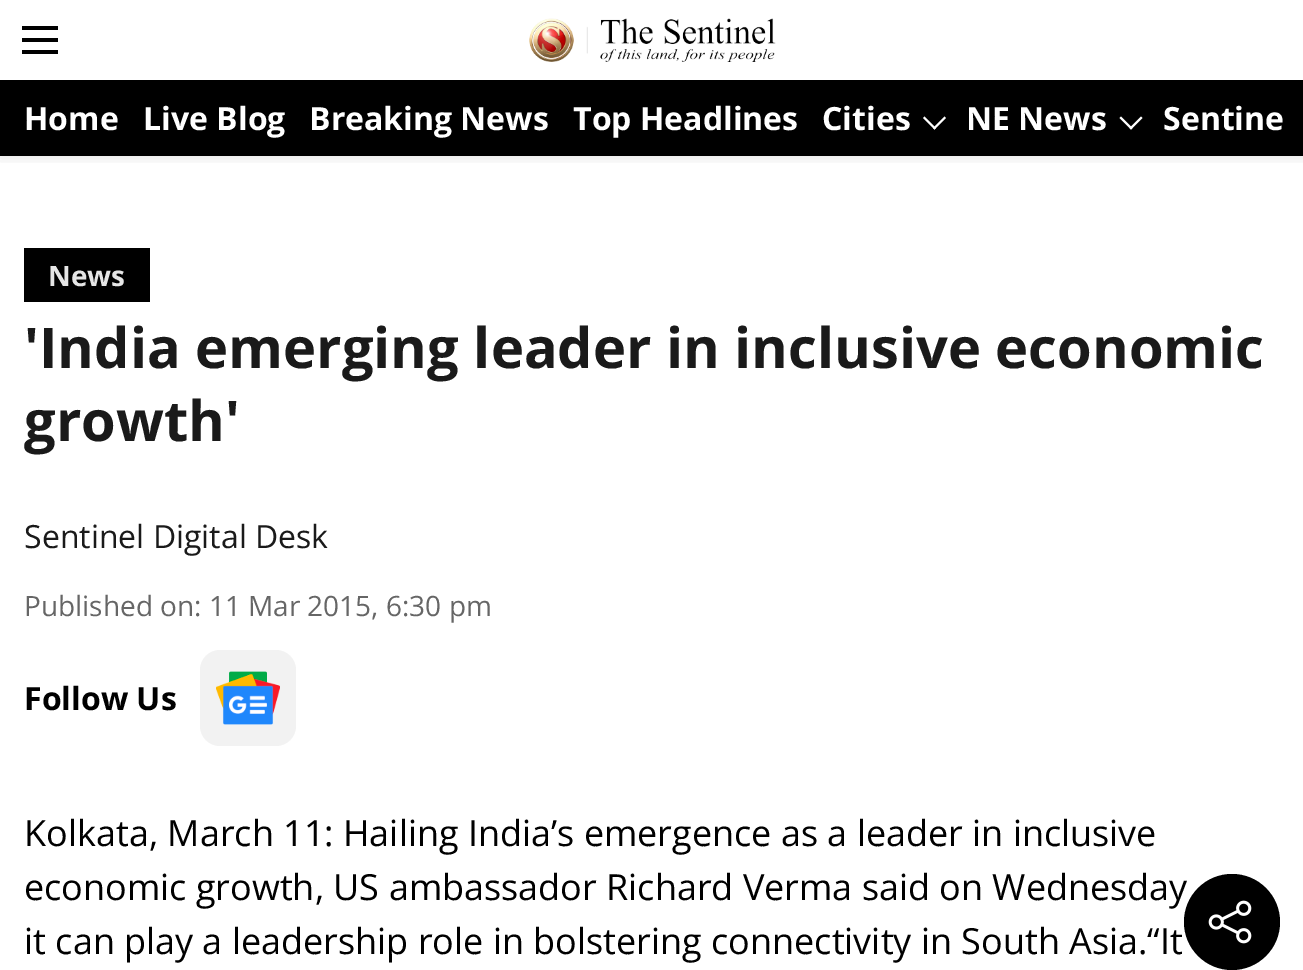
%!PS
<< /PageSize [1303 970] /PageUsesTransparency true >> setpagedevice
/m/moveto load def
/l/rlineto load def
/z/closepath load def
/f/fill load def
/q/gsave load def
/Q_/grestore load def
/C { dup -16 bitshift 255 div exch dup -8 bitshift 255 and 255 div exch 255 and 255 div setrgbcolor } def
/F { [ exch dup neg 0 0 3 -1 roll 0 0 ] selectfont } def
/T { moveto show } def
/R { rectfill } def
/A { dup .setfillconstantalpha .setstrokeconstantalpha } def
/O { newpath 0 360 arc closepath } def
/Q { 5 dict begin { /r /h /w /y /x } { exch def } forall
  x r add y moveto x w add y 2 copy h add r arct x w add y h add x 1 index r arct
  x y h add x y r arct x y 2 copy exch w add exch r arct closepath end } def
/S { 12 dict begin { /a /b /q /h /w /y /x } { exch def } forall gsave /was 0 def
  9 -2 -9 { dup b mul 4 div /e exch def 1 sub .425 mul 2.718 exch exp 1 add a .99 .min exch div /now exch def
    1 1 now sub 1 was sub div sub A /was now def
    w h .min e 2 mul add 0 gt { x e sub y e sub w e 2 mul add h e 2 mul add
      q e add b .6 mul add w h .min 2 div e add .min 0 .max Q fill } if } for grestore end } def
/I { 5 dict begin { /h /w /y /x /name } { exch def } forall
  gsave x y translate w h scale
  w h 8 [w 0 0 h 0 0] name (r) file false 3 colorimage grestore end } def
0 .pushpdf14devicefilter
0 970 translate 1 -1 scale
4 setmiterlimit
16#FFFFFF C
0 0 1303 970 R
q
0 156 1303 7 rectclip
16#000000 C
0 2 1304 156 0 6 .1 S
Q_
(1.rgb) 22 26 36 28 I
(2.rgb) 529 18 247 44 I
16#000000 C
0 80 1303 76 R
/OpenSans-Bold 32 F
16#FFFFFF C
(Home) 24 130 T
(Live Blog) 143 130 T
(Breaking News) 309 130 T
(Top Headlines) 573 130 T
(Cities) 822 130 T
944.5 116.5 m 1.5 1.5 l -11.5 11.5 l -1.5 -1.5 l z f
924.5 116.5 m 11.5 11.5 l -1.5 1.5 l -11.5 -11.5 l z f
(NE News) 966 130 T
1141 116.5 m 1.5 1.5 l -11.5 11.5 l -1.5 -1.5 l z f
1121 116.5 m 11.5 11.5 l -1.5 1.5 l -11.5 -11.5 l z f
(Sentine) 1163 130 T
16#000000 C
24 248 126 54 R
/OpenSans-Bold 28 F
16#E6E6E6 C
(News) 48 286 T
/OpenSans-Bold 56 F
16#1A1A1A C
('India emerging leader in inclusive economic) 24 368 T
(growth') 24 441 T
/OpenSans-Regular 32 F
(Sentinel Digital Desk) 24 548 T
/OpenSans-Regular 28 F
16#666666 C
(Published on: 11 Mar 2015, 6:30 pm) 24 616 T
/OpenSans-Bold 32 F
16#000000 C
(Follow Us) 24 710 T
16#F2F2F2 C
200 650 96 96 20 Q f
(3.rgb) 216 671 64 54 I
16#000000 C
1232 922 48 O f
(4.rgb) 1208 900 44 44 I
/OpenSans-Regular 36 F
(Kolkata, March 11: Hailing India’s emergence as a leader in inclusive) 24 846 T
(economic growth, US ambassador Richard Verma said on Wednesday) 24 900 T
(it can play a leadership role in bolstering connectivity in South Asia.“It) 24 954 T
.poppdf14devicefilter showpage
